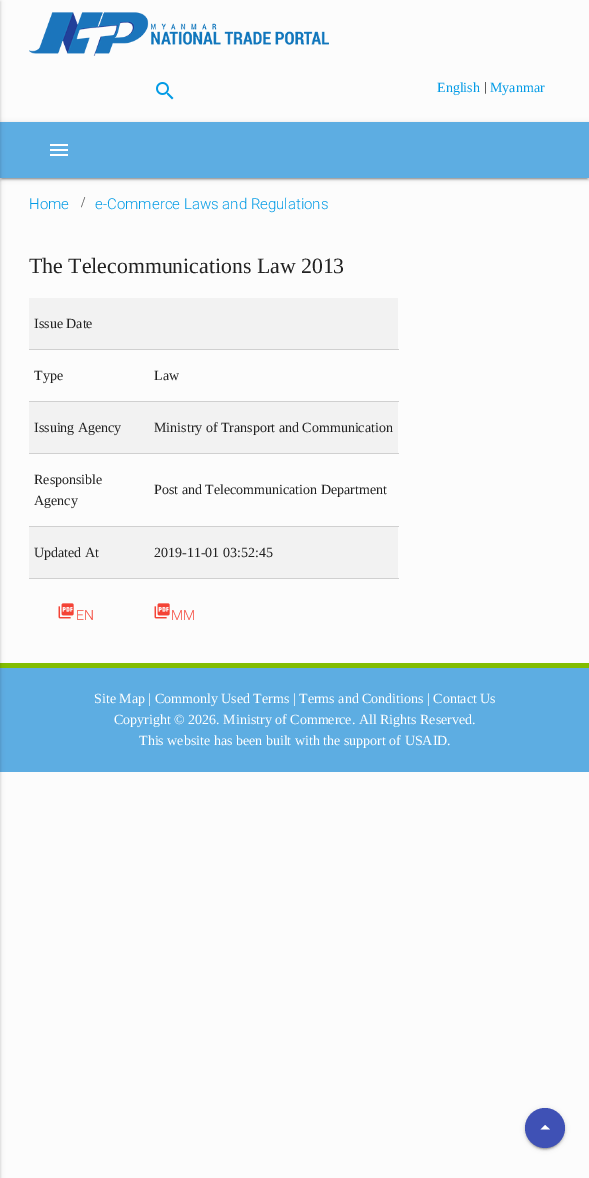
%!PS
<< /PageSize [589 1178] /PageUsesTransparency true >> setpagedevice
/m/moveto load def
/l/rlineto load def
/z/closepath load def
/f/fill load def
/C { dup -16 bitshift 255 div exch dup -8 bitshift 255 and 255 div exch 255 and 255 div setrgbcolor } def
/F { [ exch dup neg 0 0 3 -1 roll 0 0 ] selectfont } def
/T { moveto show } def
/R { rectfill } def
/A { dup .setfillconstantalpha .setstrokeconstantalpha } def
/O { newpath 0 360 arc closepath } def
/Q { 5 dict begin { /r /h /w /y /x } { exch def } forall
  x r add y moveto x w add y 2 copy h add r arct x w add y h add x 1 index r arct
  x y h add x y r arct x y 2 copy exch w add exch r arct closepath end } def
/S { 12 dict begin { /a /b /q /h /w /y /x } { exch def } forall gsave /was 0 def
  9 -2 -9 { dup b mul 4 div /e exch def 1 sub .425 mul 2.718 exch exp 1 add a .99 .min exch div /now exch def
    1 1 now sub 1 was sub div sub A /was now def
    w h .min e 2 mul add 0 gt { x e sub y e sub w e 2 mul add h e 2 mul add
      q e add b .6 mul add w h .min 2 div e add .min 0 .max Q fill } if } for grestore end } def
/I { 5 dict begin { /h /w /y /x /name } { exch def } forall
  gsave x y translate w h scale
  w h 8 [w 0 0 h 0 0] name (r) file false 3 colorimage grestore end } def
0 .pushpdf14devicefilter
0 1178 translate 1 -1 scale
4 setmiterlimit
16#FCFCFC C
0 0 589 1178 R
16#000000 C
2 127 585 52 0 .5 .2 S
0 123 589 56 0 2.5 .12 S
0 124 589 56 0 1 .14 S
16#5DADE2 C
0 122 589 56 R
0 668 589 104 R
16#82BD01 C
0 663 589 5 R
16#000000 C
-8 1 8 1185 0 2.5 .12 S
-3 2 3 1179 0 1 .14 S
(1.rgb) 50 144 18 12 I
(2.rgb) 29 12 300 44 I
(3.rgb) 156 82 18 18 I
/LiberationSerif-Regular 14 F
16#039BE5 C
(English) 437 92 T
/Roboto-Light 14 F
16#222222 C
(|) 484 92 T
/LiberationSerif-Regular 14 F
16#039BE5 C
(Myanmar) 490 92 T
/Roboto-Light 15 F
(Home) 29 209 T
/LiberationSerif-Regular 15 F
16#4C4C4C C
(/) 81 207 T
/Roboto-Light 15 F
16#039BE5 C
(e-Commerce Laws and Regulations) 95 209 T
/LiberationSerif-Regular 21.8 F
16#222222 C
(The Telecommunications Law 2013) 29 273 T
16#F2F2F2 C
29 298 369 51 R
16#D0D0D0 C
29 349 370 1 R
/LiberationSerif-Regular 14 F
16#222222 C
(Issue Date) 34 328 T
16#D0D0D0 C
29 401 370 1 R
16#222222 C
(Type) 34 380 T
(Law) 154 380 T
16#F2F2F2 C
29 402 369 51 R
16#D0D0D0 C
29 453 370 1 R
16#222222 C
(Issuing Agency) 34 432 T
(Ministry of Transport and Communication) 154 432 T
16#D0D0D0 C
29 526 370 1 R
16#222222 C
(Responsible) 34 484 T
(Agency) 34 505 T
(Post and Telecommunication Department) 154 494 T
16#F2F2F2 C
29 527 369 51 R
16#D0D0D0 C
29 578 370 1 R
16#222222 C
(Updated At) 34 557 T
(2019-11-01 03:52:45) 154 557 T
(4.rgb) 58 603 16 16 I
/Roboto-Light 14 F
16#F44336 C
(EN) 76 620 T
(4.rgb) 154 603 16 16 I
(MM) 171 620 T
/LiberationSerif-Regular 14 F
16#FFFFFF C
(Site Map | Commonly Used Terms | Terms and Conditions | Contact Us) 94 703 T
(Copyright © 2026. Ministry of Commerce. All Rights Reserved.) 114 724 T
(This website has been built with the support of USAID.) 139 745 T
16#000000 C
527 1113 36 36 18 .5 .2 S
525 1109 40 40 20 2.5 .12 S
525 1110 40 40 20 1 .14 S
16#3F51B5 C
545 1128 20 O f
16#FFFFFF C
540.5 1129.5 m 4.5 -4.5 l 5 4.5 l z f
.poppdf14devicefilter showpage
